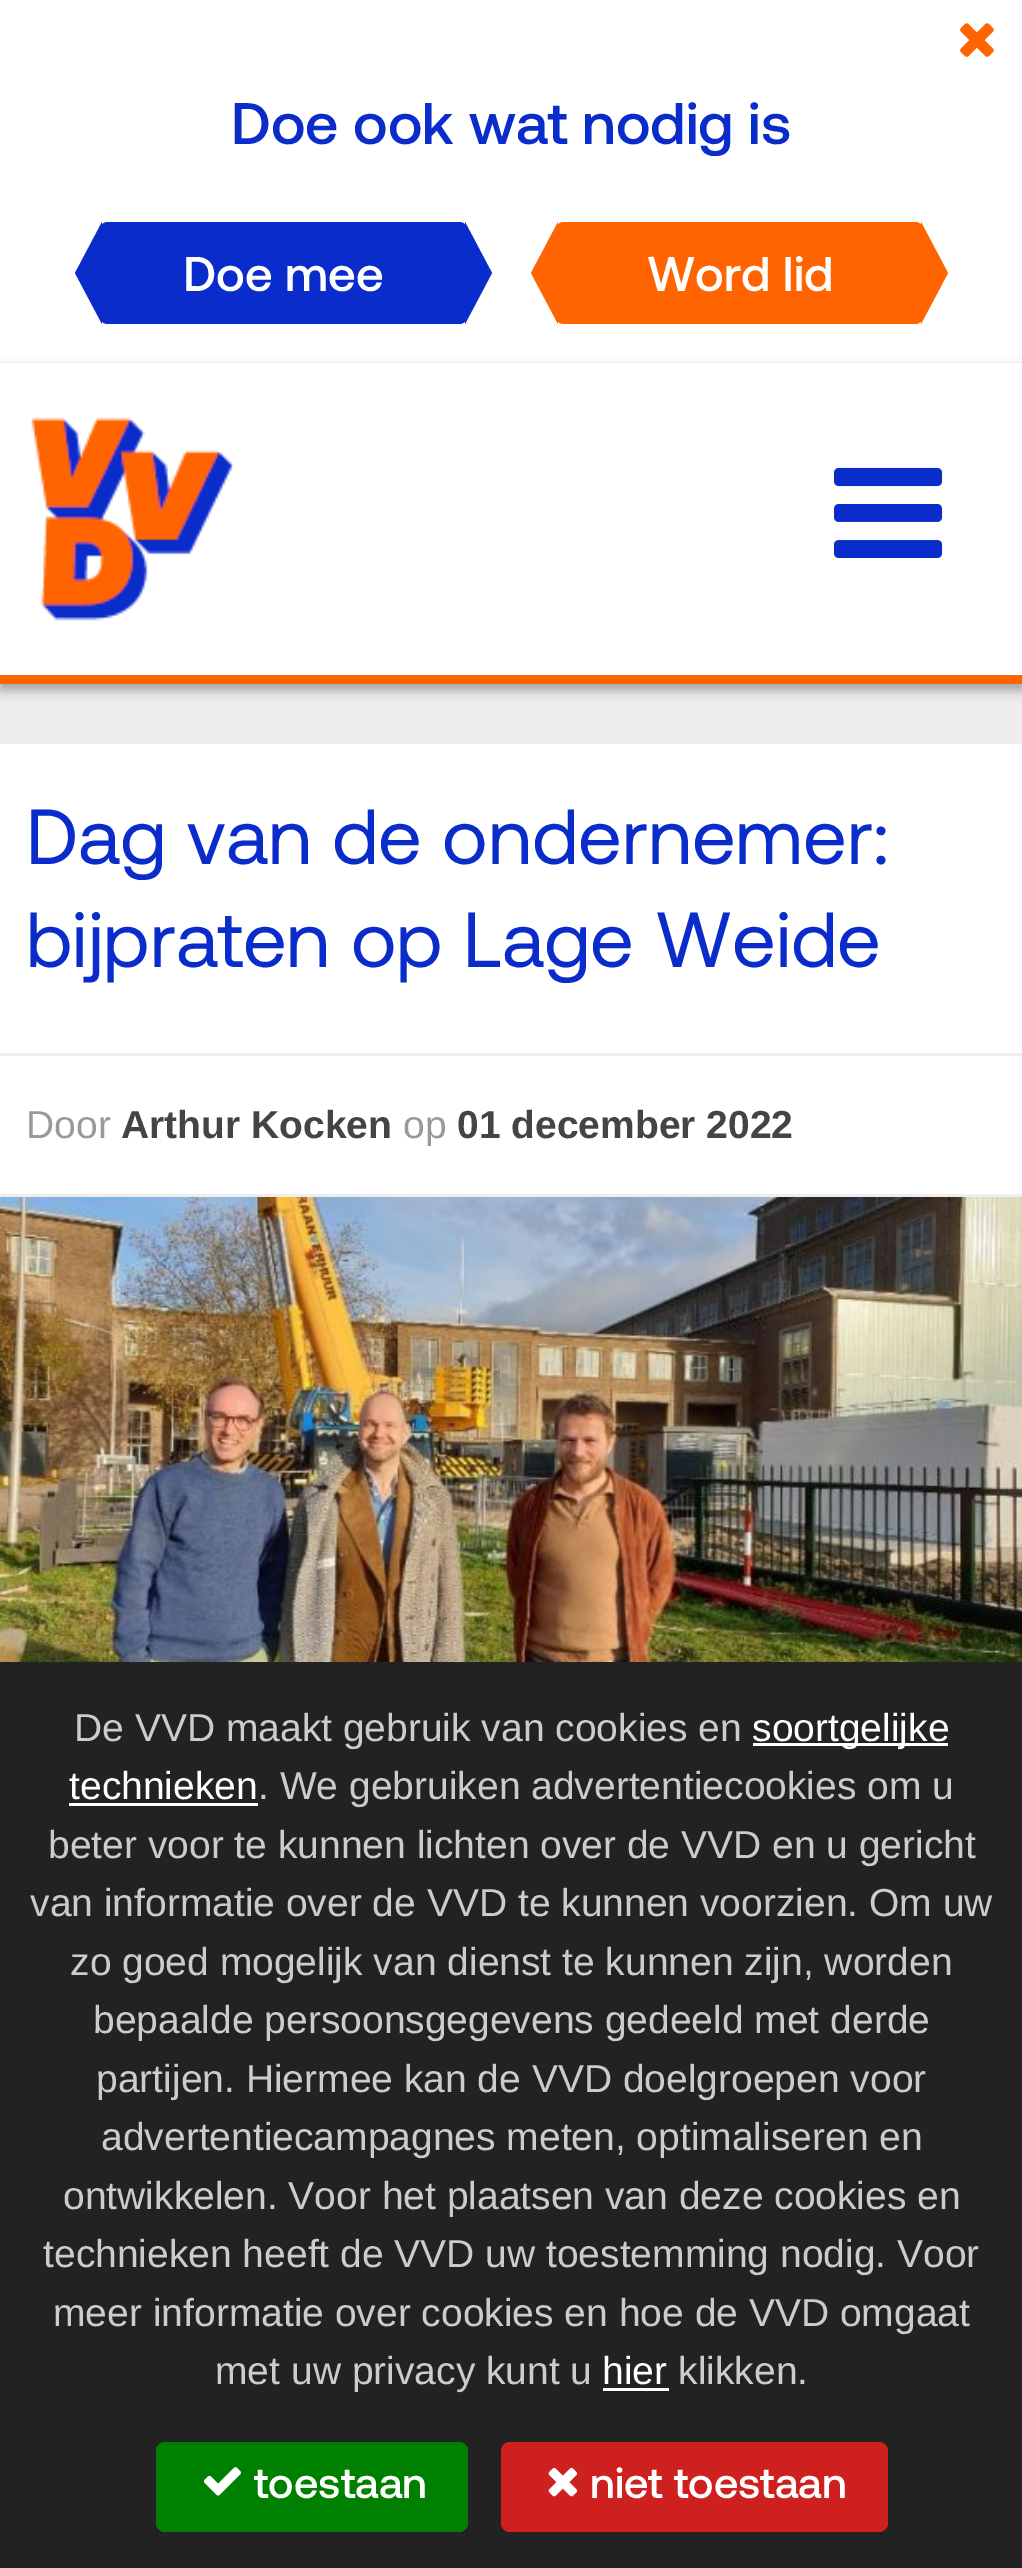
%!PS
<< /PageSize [1022 2568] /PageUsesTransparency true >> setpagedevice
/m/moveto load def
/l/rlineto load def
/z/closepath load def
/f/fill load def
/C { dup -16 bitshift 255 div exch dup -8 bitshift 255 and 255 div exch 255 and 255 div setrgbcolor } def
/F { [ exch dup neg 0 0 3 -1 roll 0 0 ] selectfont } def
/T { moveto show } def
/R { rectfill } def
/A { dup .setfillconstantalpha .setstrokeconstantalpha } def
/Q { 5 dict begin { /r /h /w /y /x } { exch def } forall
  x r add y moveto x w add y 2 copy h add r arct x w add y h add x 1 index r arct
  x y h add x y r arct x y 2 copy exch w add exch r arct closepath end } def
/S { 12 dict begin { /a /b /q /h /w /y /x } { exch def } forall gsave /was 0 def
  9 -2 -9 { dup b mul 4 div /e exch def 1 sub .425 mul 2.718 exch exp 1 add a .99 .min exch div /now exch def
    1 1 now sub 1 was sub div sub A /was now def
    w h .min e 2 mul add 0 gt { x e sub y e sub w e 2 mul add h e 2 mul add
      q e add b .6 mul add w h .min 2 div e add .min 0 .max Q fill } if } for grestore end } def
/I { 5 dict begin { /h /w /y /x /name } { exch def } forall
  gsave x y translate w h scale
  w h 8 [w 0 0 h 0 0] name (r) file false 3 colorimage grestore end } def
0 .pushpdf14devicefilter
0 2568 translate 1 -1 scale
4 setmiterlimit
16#EEEEEE C
0 0 1022 2568 R
16#FFFFFF C
0 0 1022 363 R
(1.rgb) 960 23 34 34 I
/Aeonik-Medium 58.5 F
16#0A2CCA C
(Doe ook wat nodig is) 231 144 T
99 222 369 102 9 Q f
102 222 m 0 102 l -27 -51 l z f
/Aeonik-Medium 48.75 F
16#FFFFFF C
(Doe mee) 183 291 T
16#0A2CCA C
465 324 m 0 -102 l 27 51 l z f
16#FF6400 C
555 222 369 102 9 Q f
558 222 m 0 102 l -27 -51 l z f
16#FFFFFF C
(Word lid) 647 291 T
16#FF6400 C
921 324 m 0 -102 l 27 51 l z f
16#000000 C
0 369 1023 321 0 6 .33 S
16#FFFFFF C
0 363 1022 312 R
16#FF6400 C
0 675 1022 9 R
(2.rgb) 31 417 203 204 I
(3.rgb) 834 467 109 91 I
16#FFFFFF C
0 744 1022 450 R
/Aeonik-Regular 78 F
16#0A2CCA C
(Dag van de ondernemer:) 26 864 T
(bijpraten op Lage Weide) 26 967 T
16#EEEEEE C
0 1053 1022 3 R
/LiberationSans-Regular 39 F
16#999999 C
(Door) 26 1138 T
/LiberationSans-Bold 39 F
16#444444 C
(Arthur Kocken) 121 1138 T
/LiberationSans-Regular 39 F
16#999999 C
(op) 403 1138 T
/LiberationSans-Bold 39 F
16#444444 C
(01 december 2022) 457 1138 T
(4.rgb) 0 1197 1022 465 I
16#222222 C
0 1662 1022 906 R
/LiberationSans-Regular 39 F
16#CCCCCC C
(De VVD maakt gebruik van cookies en) 74 1741 T
16#FFFFFF C
753 1743 195 3 R
(soortgelijke) 752 1741 T
(technieken) 69 1799 T
69 1803 189 3 R
16#CCCCCC C
(. We gebruiken advertentiecookies om u) 258 1799 T
(beter voor te kunnen lichten over de VVD en u gericht) 48 1858 T
(van informatie over de VVD te kunnen voorzien. Om uw) 30 1916 T
(zo goed mogelijk van dienst te kunnen zijn, worden) 70 1975 T
(bepaalde persoonsgegevens gedeeld met derde) 93 2033 T
(partijen. Hiermee kan de VVD doelgroepen voor) 96 2092 T
(advertentiecampagnes meten, optimaliseren en) 101 2150 T
(ontwikkelen. Voor het plaatsen van deze cookies en) 63 2209 T
(technieken heeft de VVD uw toestemming nodig. Voor) 43 2267 T
(meer informatie over cookies en hoe de VVD omgaat) 53 2326 T
(met uw privacy kunt u) 215 2384 T
16#FFFFFF C
(hier) 602 2384 T
603 2388 66 3 R
16#CCCCCC C
(klikken.) 678 2384 T
16#008000 C
156 2442 312 90 9 Q f
(5.rgb) 203 2467 38 29 I
/Aeonik-Medium 43 F
16#FFFFFF C
(toestaan) 254 2498 T
16#CD201F C
501 2442 387 90 9 Q f
(6.rgb) 548 2467 30 30 I
16#FFFFFF C
(niet toestaan) 590 2498 T
.poppdf14devicefilter showpage
